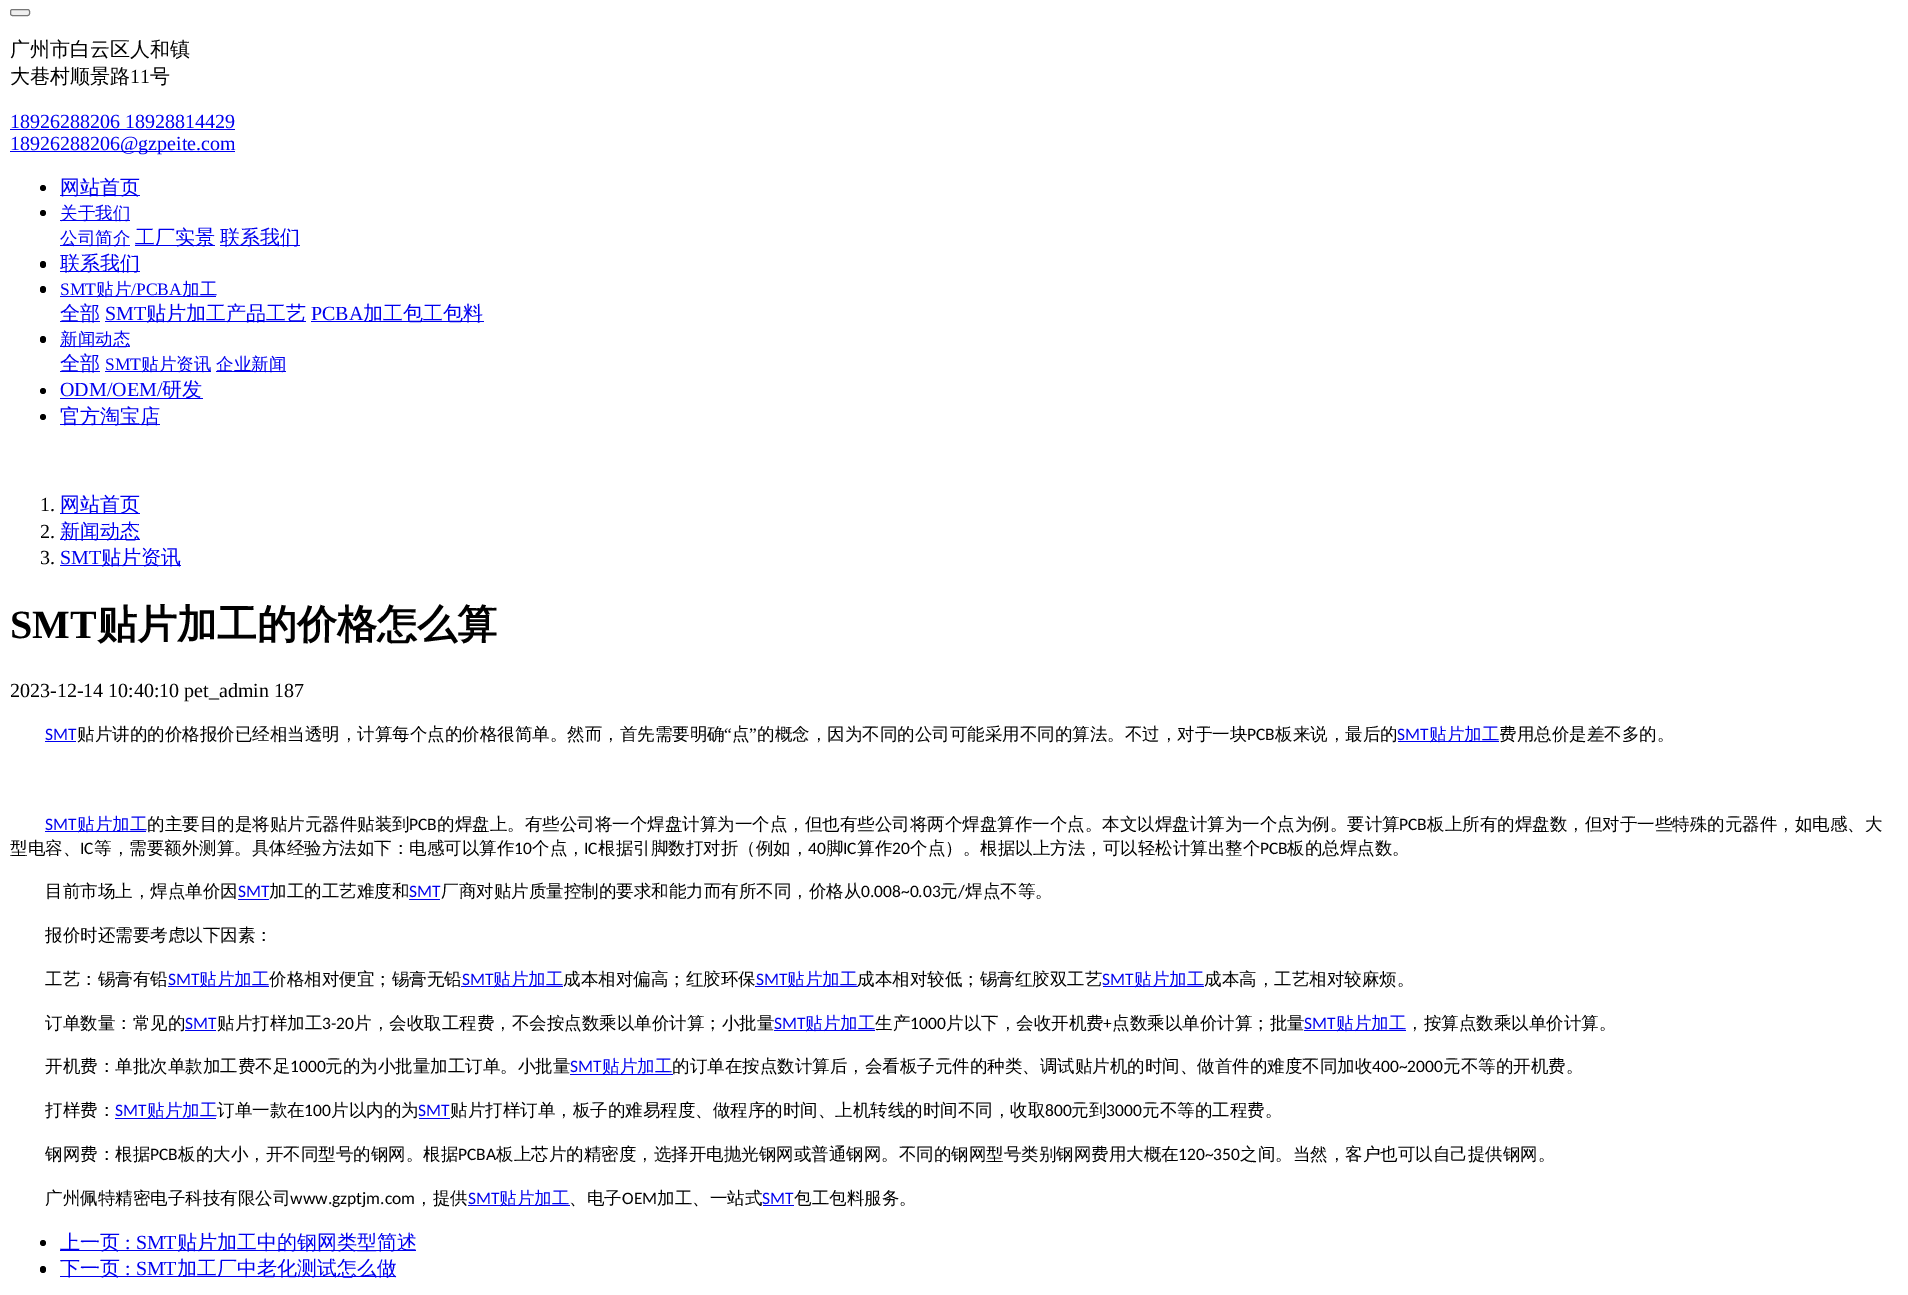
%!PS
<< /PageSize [1908 1295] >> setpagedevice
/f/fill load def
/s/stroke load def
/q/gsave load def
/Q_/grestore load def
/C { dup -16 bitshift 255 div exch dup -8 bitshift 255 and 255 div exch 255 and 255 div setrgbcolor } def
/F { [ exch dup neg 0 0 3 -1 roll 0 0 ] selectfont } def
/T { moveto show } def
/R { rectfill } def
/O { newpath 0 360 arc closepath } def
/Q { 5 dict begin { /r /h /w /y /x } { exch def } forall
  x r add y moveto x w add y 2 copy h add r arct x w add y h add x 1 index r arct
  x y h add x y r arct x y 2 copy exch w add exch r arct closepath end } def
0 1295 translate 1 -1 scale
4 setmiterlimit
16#FFFFFF C
0 0 1908 1295 R
16#EFEFEF C
10.5 9.5 19 6 2 Q q f Q_
16#767676 C
s
/WenQuanYiZenHei-Medium 20 F
16#000000 C
(广州市白云区人和镇) 10 56 T
(大巷村顺景路) 10 83 T
/LiberationSerif-Regular 20 F
(11) 130 83 T
/WenQuanYiZenHei-Medium 20 F
(号) 150 83 T
/LiberationSerif-Regular 20 F
16#0000EE C
(18926288206 18928814429) 10 128 T
10 129 225 1 R
10 151 225 1 R
(18926288206@gzpeite.com) 10 150 T
16#000000 C
43 188 3 O f
16#0000EE C
60 195 80 1 R
/WenQuanYiZenHei-Medium 20 F
(网站首页) 60 194 T
16#000000 C
43 213 3 O f
16#0000EE C
60 220 70 1 R
/WenQuanYiZenHei-Medium 17.5 F
(关于我们) 60 219 T
60 245 70 1 R
(公司简介) 60 244 T
135 245 80 1 R
/WenQuanYiZenHei-Medium 20 F
(工厂实景) 135 244 T
220 245 80 1 R
(联系我们) 220 244 T
16#000000 C
40 261 6 7 3 Q f
16#0000EE C
60 271 80 1 R
(联系我们) 60 270 T
16#000000 C
40 286 6 7 3 Q f
/LiberationSerif-Regular 17.5 F
16#0000EE C
(SMT) 60 295 T
60 296 156 1 R
/WenQuanYiZenHei-Medium 17.5 F
(贴片) 96 295 T
/LiberationSerif-Regular 17.5 F
(/PCBA) 131 295 T
/WenQuanYiZenHei-Medium 17.5 F
(加工) 182 295 T
60 321 40 1 R
/WenQuanYiZenHei-Medium 20 F
(全部) 60 320 T
/LiberationSerif-Regular 20 F
(SMT) 105 320 T
105 321 201 1 R
/WenQuanYiZenHei-Medium 20 F
(贴片加工产品工艺) 146 320 T
/LiberationSerif-Regular 20 F
(PCBA) 311 320 T
311 321 173 1 R
/WenQuanYiZenHei-Medium 20 F
(加工包工包料) 363 320 T
16#000000 C
40 336 6 7 3 Q f
16#0000EE C
60 346 70 1 R
/WenQuanYiZenHei-Medium 17.5 F
(新闻动态) 60 345 T
60 371 40 1 R
/WenQuanYiZenHei-Medium 20 F
(全部) 60 370 T
/LiberationSerif-Regular 17.5 F
(SMT) 105 370 T
105 371 106 1 R
/WenQuanYiZenHei-Medium 17.5 F
(贴片资讯) 141 370 T
216 371 70 1 R
(企业新闻) 216 370 T
16#000000 C
43 391 3 O f
/LiberationSerif-Regular 20 F
16#0000EE C
(ODM/OEM/) 60 396 T
60 398 143 1 R
/WenQuanYiZenHei-Medium 20 F
(研发) 162 396 T
16#000000 C
43 417 3 O f
16#0000EE C
60 424 100 1 R
(官方淘宝店) 60 423 T
/LiberationSerif-Regular 20 F
16#000000 C
(1.) 40 511 T
16#0000EE C
60 513 80 1 R
/WenQuanYiZenHei-Medium 20 F
(网站首页) 60 511 T
/LiberationSerif-Regular 20 F
16#000000 C
(2.) 40 538 T
16#0000EE C
60 539 80 1 R
/WenQuanYiZenHei-Medium 20 F
(新闻动态) 60 538 T
/LiberationSerif-Regular 20 F
16#000000 C
(3.) 40 564 T
16#0000EE C
(SMT) 60 564 T
60 565 121 1 R
/WenQuanYiZenHei-Medium 20 F
(贴片资讯) 101 564 T
/LiberationSerif-Bold 40 F
16#000000 C
(SMT) 10 638 T
/WenQuanYiZenHei-Bold 40 F
(贴片加工的价格怎么算) 97 638 T
/LiberationSerif-Regular 20 F
(2023-12-14 10:40:10 pet_admin 187) 10 697 T
/Carlito-Regular 17.5 F
16#0000EE C
(SMT) 45 740 T
45 741 31 1 R
/WenQuanYiZenHei-Medium 17.5 F
16#000000 C
(贴片讲的的价格报价已经相当透明，计算每个点的价格很简单。然而，首先需要明确) 77 740 T
/LiberationSerif-Regular 17.5 F
(“) 724 740 T
/WenQuanYiZenHei-Medium 17.5 F
(点) 732 740 T
/LiberationSerif-Regular 17.5 F
(”) 749 740 T
/WenQuanYiZenHei-Medium 17.5 F
(的概念，因为不同的公司可能采用不同的算法。不过，对于一块) 757 740 T
/Carlito-Regular 17.5 F
(PCB) 1247 740 T
/WenQuanYiZenHei-Medium 17.5 F
(板来说，最后的) 1275 740 T
/Carlito-Regular 17.5 F
16#0000EE C
(SMT) 1397 740 T
1398 741 101 1 R
/WenQuanYiZenHei-Medium 17.5 F
(贴片加工) 1429 740 T
16#000000 C
(费用总价是差不多的。) 1499 740 T
/Carlito-Regular 17.5 F
16#0000EE C
(SMT) 45 830 T
45 831 101 1 R
/WenQuanYiZenHei-Medium 17.5 F
(贴片加工) 77 830 T
16#000000 C
(的主要目的是将贴片元器件贴装到) 147 830 T
/Carlito-Regular 17.5 F
(PCB) 409 830 T
/WenQuanYiZenHei-Medium 17.5 F
(的焊盘上。有些公司将一个焊盘计算为一个点，但也有些公司将两个焊盘算作一个点。本文以焊盘计算为一个点为例。要计算) 437 830 T
/Carlito-Regular 17.5 F
(PCB) 1399 830 T
/WenQuanYiZenHei-Medium 17.5 F
(板上所有的焊盘数，但对于一些特殊的元器件，如电感、大) 1427 830 T
(型电容、) 10 854 T
/Carlito-Regular 17.5 F
(IC) 80 854 T
/WenQuanYiZenHei-Medium 17.5 F
(等，需要额外测算。具体经验方法如下：电感可以算作) 94 854 T
/Carlito-Regular 17.5 F
(10) 514 854 T
/WenQuanYiZenHei-Medium 17.5 F
(个点，) 532 854 T
/Carlito-Regular 17.5 F
(IC) 584 854 T
/WenQuanYiZenHei-Medium 17.5 F
(根据引脚数打对折（例如，) 598 854 T
/Carlito-Regular 17.5 F
(40) 808 854 T
/WenQuanYiZenHei-Medium 17.5 F
(脚) 826 854 T
/Carlito-Regular 17.5 F
(IC) 843 854 T
/WenQuanYiZenHei-Medium 17.5 F
(算作) 857 854 T
/Carlito-Regular 17.5 F
(20) 892 854 T
/WenQuanYiZenHei-Medium 17.5 F
(个点）。根据以上方法，可以轻松计算出整个) 910 854 T
/Carlito-Regular 17.5 F
(PCB) 1260 854 T
/WenQuanYiZenHei-Medium 17.5 F
(板的总焊点数。) 1287 854 T
(目前市场上，焊点单价因) 45 897 T
/Carlito-Regular 17.5 F
16#0000EE C
(SMT) 238 897 T
238 899 31 1 R
/WenQuanYiZenHei-Medium 17.5 F
16#000000 C
(加工的工艺难度和) 269 897 T
/Carlito-Regular 17.5 F
16#0000EE C
(SMT) 409 897 T
409 899 31 1 R
/WenQuanYiZenHei-Medium 17.5 F
16#000000 C
(厂商对贴片质量控制的要求和能力而有所不同，价格从) 441 897 T
/Carlito-Regular 17.5 F
(0.008~0.03) 861 897 T
/WenQuanYiZenHei-Medium 17.5 F
(元) 940 897 T
/Carlito-Regular 17.5 F
(/) 958 897 T
/WenQuanYiZenHei-Medium 17.5 F
(焊点不等。) 965 897 T
(报价时还需要考虑以下因素：) 45 941 T
(工艺：锡膏有铅) 45 985 T
/Carlito-Regular 17.5 F
16#0000EE C
(SMT) 168 985 T
168 986 101 1 R
/WenQuanYiZenHei-Medium 17.5 F
(贴片加工) 199 985 T
16#000000 C
(价格相对便宜；锡膏无铅) 269 985 T
/Carlito-Regular 17.5 F
16#0000EE C
(SMT) 462 985 T
461 986 102 1 R
/WenQuanYiZenHei-Medium 17.5 F
(贴片加工) 493 985 T
16#000000 C
(成本相对偏高；红胶环保) 563 985 T
/Carlito-Regular 17.5 F
16#0000EE C
(SMT) 756 985 T
755 986 103 1 R
/WenQuanYiZenHei-Medium 17.5 F
(贴片加工) 787 985 T
16#000000 C
(成本相对较低；锡膏红胶双工艺) 857 985 T
/Carlito-Regular 17.5 F
16#0000EE C
(SMT) 1102 985 T
1103 986 101 1 R
/WenQuanYiZenHei-Medium 17.5 F
(贴片加工) 1134 985 T
16#000000 C
(成本高，工艺相对较麻烦。) 1204 985 T
(订单数量：常见的) 45 1029 T
/Carlito-Regular 17.5 F
16#0000EE C
(SMT) 185 1029 T
185 1030 31 1 R
/WenQuanYiZenHei-Medium 17.5 F
16#000000 C
(贴片打样加工) 217 1029 T
/Carlito-Regular 17.5 F
(3-20) 322 1029 T
/WenQuanYiZenHei-Medium 17.5 F
(片，会收取工程费，不会按点数乘以单价计算；小批量) 354 1029 T
/Carlito-Regular 17.5 F
16#0000EE C
(SMT) 774 1029 T
774 1030 101 1 R
/WenQuanYiZenHei-Medium 17.5 F
(贴片加工) 805 1029 T
16#000000 C
(生产) 875 1029 T
/Carlito-Regular 17.5 F
(1000) 910 1029 T
/WenQuanYiZenHei-Medium 17.5 F
(片以下，会收开机费) 946 1029 T
/Carlito-Regular 17.5 F
(+) 1103 1029 T
/WenQuanYiZenHei-Medium 17.5 F
(点数乘以单价计算；批量) 1112 1029 T
/Carlito-Regular 17.5 F
16#0000EE C
(SMT) 1304 1029 T
1304 1030 102 1 R
/WenQuanYiZenHei-Medium 17.5 F
(贴片加工) 1336 1029 T
16#000000 C
(，按算点数乘以单价计算。) 1406 1029 T
(开机费：单批次单款加工费不足) 45 1072 T
/Carlito-Regular 17.5 F
(1000) 290 1072 T
/WenQuanYiZenHei-Medium 17.5 F
(元的为小批量加工订单。小批量) 325 1072 T
/Carlito-Regular 17.5 F
16#0000EE C
(SMT) 570 1072 T
570 1074 103 1 R
/WenQuanYiZenHei-Medium 17.5 F
(贴片加工) 602 1072 T
16#000000 C
(的订单在按点数计算后，会看板子元件的种类、调试贴片机的时间、做首件的难度不同加收) 672 1072 T
/Carlito-Regular 17.5 F
(400~2000) 1372 1072 T
/WenQuanYiZenHei-Medium 17.5 F
(元不等的开机费。) 1443 1072 T
(打样费：) 45 1116 T
/Carlito-Regular 17.5 F
16#0000EE C
(SMT) 115 1116 T
115 1118 101 1 R
/WenQuanYiZenHei-Medium 17.5 F
(贴片加工) 147 1116 T
16#000000 C
(订单一款在) 217 1116 T
/Carlito-Regular 17.5 F
(100) 304 1116 T
/WenQuanYiZenHei-Medium 17.5 F
(片以内的为) 331 1116 T
/Carlito-Regular 17.5 F
16#0000EE C
(SMT) 418 1116 T
419 1118 31 1 R
/WenQuanYiZenHei-Medium 17.5 F
16#000000 C
(贴片打样订单，板子的难易程度、做程序的时间、上机转线的时间不同，收取) 450 1116 T
/Carlito-Regular 17.5 F
(800) 1045 1116 T
/WenQuanYiZenHei-Medium 17.5 F
(元到) 1071 1116 T
/Carlito-Regular 17.5 F
(3000) 1106 1116 T
/WenQuanYiZenHei-Medium 17.5 F
(元不等的工程费。) 1142 1116 T
(钢网费：根据) 45 1160 T
/Carlito-Regular 17.5 F
(PCB) 150 1160 T
/WenQuanYiZenHei-Medium 17.5 F
(板的大小，开不同型号的钢网。根据) 178 1160 T
/Carlito-Regular 17.5 F
(PCBA) 458 1160 T
/WenQuanYiZenHei-Medium 17.5 F
(板上芯片的精密度，选择开电抛光钢网或普通钢网。不同的钢网型号类别钢网费用大概在) 496 1160 T
/Carlito-Regular 17.5 F
(120~350) 1178 1160 T
/WenQuanYiZenHei-Medium 17.5 F
(之间。当然，客户也可以自己提供钢网。) 1240 1160 T
(广州佩特精密电子科技有限公司) 45 1204 T
/Carlito-Regular 17.5 F
(www.gzptjm.com) 290 1204 T
/WenQuanYiZenHei-Medium 17.5 F
(，提供) 415 1204 T
16#0000EE C
468 1205 102 1 R
/Carlito-Regular 17.5 F
(SMT) 468 1204 T
/WenQuanYiZenHei-Medium 17.5 F
(贴片加工) 499 1204 T
16#000000 C
(、电子) 569 1204 T
/Carlito-Regular 17.5 F
(OEM) 622 1204 T
/WenQuanYiZenHei-Medium 17.5 F
(加工、一站式) 657 1204 T
/Carlito-Regular 17.5 F
16#0000EE C
(SMT) 762 1204 T
763 1205 31 1 R
/WenQuanYiZenHei-Medium 17.5 F
16#000000 C
(包工包料服务。) 794 1204 T
43 1243 3 O f
16#0000EE C
60 1250 356 1 R
/WenQuanYiZenHei-Medium 20 F
(上一页) 60 1249 T
/LiberationSerif-Regular 20 F
(: SMT) 125 1249 T
/WenQuanYiZenHei-Medium 20 F
(贴片加工中的钢网类型简述) 177 1249 T
16#000000 C
40 1266 6 7 3 Q f
16#0000EE C
60 1276 336 1 R
(下一页) 60 1275 T
/LiberationSerif-Regular 20 F
(: SMT) 125 1275 T
/WenQuanYiZenHei-Medium 20 F
(加工厂中老化测试怎么做) 177 1275 T
showpage
